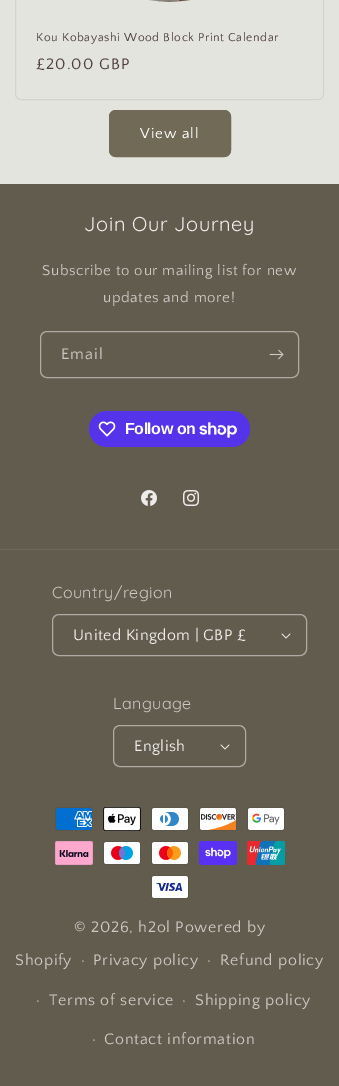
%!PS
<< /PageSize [339 1086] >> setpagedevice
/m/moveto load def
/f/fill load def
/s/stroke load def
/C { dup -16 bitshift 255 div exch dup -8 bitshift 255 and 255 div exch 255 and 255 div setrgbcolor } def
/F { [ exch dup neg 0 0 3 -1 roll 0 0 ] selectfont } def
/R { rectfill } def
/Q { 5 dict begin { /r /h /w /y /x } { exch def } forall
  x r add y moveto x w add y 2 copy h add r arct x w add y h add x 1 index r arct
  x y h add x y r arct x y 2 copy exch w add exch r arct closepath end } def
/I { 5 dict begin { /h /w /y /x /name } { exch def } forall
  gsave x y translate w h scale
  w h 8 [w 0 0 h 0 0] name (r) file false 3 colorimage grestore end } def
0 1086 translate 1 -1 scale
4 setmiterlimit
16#E4E4DE C
0 0 339 1086 R
16#D5D3CE C
15.5 -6.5 308 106 5.5 Q s
(1.rgb) 149 0 42 2 I
/QuattrocentoSans-Regular 12 F
16#4E3E3E C
36 41 m .6 0 (Kou Kobayashi Wood Block Print Calendar) ashow
/QuattrocentoSans-Regular 16 F
36 69 m 1 0 (£20.00 GBP) ashow
16#716A56 C
109 110 122 47 7 Q f
109.5 110.5 121 46 6.5 Q s
/QuattrocentoSans-Regular 15 F
16#FFFFFF C
140 138 m 1 0 (View all) ashow
16#615C4D C
0 184 339 902 R
/Quicksand-Regular 20 F
16#EFECEC C
84 231 m .6 0 (Join Our Journey) ashow
/QuattrocentoSans-Regular 15 F
16#CCC8C4 C
42 275 m .6 0 (Subscribe to our mailing list for new) ashow
103 302 m .6 0 (updates and more!) ashow
16#AFABA4 C
40.5 331.5 258 46 6.5 Q s
/QuattrocentoSans-Regular 16 F
16#CCC8C4 C
61 359 m 1 0 (Email) ashow
(2.rgb) 269 349 15 11 I
16#5433EB C
89 411 161 36 18 Q f
(3.rgb) 98 421 18 16 I
/LiberationSans-Bold 16 F
16#FFFFFF C
125 434 m -.5 0 (Follow on) ashow
(4.rgb) 199 422 38 16 I
(5.rgb) 141 490 16 16 I
(6.rgb) 183 490 16 16 I
16#6C685A C
0 549 339 1 R
/Quicksand-Regular 16 F
16#CCC8C4 C
52 598 m .4 0 (Country/region) ashow
(7.rgb) 281 633 10 6 I
16#AFABA4 C
52.5 614.5 254 41 6.5 Q s
/QuattrocentoSans-Regular 16 F
16#EFECEC C
73 640 m .4 0 (United Kingdom | GBP £) ashow
/Quicksand-Regular 16 F
16#CCC8C4 C
113 709 m .4 0 (Language) ashow
(7.rgb) 220 744 10 6 I
16#AFABA4 C
113.5 725.5 132 41 6.5 Q s
/QuattrocentoSans-Regular 16 F
16#EFECEC C
134 751 m .4 0 (English) ashow
(8.rgb) 55 807 38 24 I
(9.rgb) 103 807 38 24 I
(10.rgb) 151 807 38 24 I
(11.rgb) 199 807 38 24 I
(12.rgb) 247 807 38 24 I
(13.rgb) 55 841 38 24 I
(14.rgb) 103 841 38 24 I
(15.rgb) 151 841 38 24 I
(16.rgb) 199 841 38 24 I
(17.rgb) 247 841 38 24 I
(18.rgb) 151 875 38 24 I
16#CCC8C4 C
74 932 m .7 0 (© 2026, h2ol Powered by) ashow
15 965 m .7 0 (Shopify) ashow
81 965 m .7 0 (·) ashow
93 965 m .7 0 (Privacy policy) ashow
207 965 m .7 0 (·) ashow
220 965 m .7 0 (Refund policy) ashow
36 1005 m .7 0 (·) ashow
49 1005 m .7 0 (Terms of service) ashow
182 1005 m .7 0 (·) ashow
195 1005 m .7 0 (Shipping policy) ashow
92 1044 m .7 0 (·) ashow
104 1044 m .7 0 (Contact information) ashow
showpage
